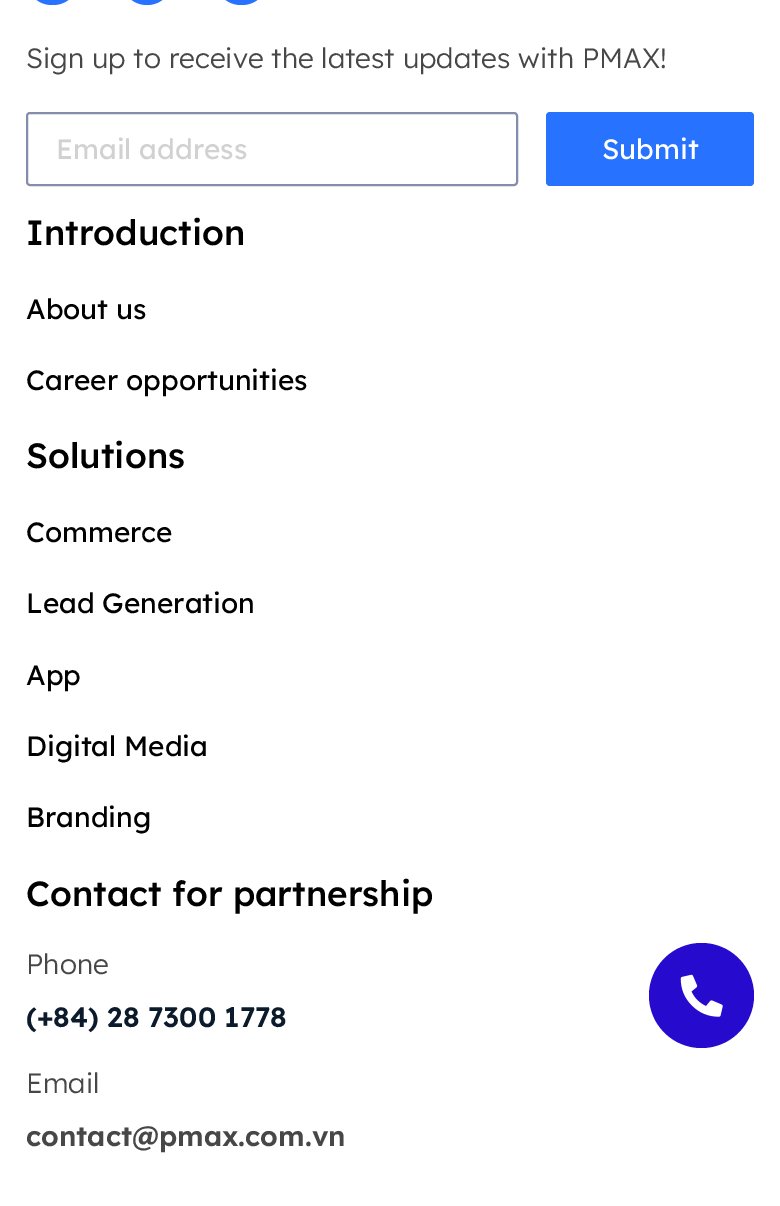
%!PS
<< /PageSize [780 1206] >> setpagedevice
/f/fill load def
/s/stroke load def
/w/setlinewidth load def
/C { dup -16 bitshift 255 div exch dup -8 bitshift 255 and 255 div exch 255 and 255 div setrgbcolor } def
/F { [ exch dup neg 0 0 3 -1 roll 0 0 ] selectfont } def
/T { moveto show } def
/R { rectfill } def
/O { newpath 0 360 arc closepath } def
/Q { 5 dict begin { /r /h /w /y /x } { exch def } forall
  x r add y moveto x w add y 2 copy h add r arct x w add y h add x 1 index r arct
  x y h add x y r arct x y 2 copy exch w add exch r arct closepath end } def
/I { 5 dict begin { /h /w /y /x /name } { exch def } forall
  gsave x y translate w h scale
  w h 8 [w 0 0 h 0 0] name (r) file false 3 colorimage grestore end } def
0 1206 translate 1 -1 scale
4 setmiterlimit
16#FFFFFF C
0 0 780 1206 R
16#2773FF C
26 -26 53 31 26 Q f
121 -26 52 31 26 Q f
215 -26 53 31 26 Q f
/LexendDeca-Light 28 F
16#474747 C
(Sign up to receive the latest updates with PMAX!) 26 68 T
16#848DAB C
2 w
27 113 490 72 3 Q s
/LexendDeca-Regular 28 F
16#D1D1D1 C
(Email address) 56 159 T
16#2773FF C
546 112 208 74 4 Q f
16#FFFFFF C
(Submit) 602 159 T
/LexendDeca-Medium 35 F
16#000000 C
(Introduction) 26 245 T
/LexendDeca-Regular 28 F
(About us) 26 319 T
(Career opportunities) 26 390 T
/LexendDeca-Medium 35 F
(Solutions) 26 468 T
/LexendDeca-Regular 28 F
(Commerce) 26 542 T
(Lead Generation) 26 613 T
(App) 26 685 T
(Digital Media) 26 756 T
(Branding) 26 827 T
/LexendDeca-Medium 35 F
(Contact for partnership) 26 906 T
/LexendDeca-Light 28 F
16#474747 C
(Phone) 26 974 T
/LexendDeca-SemiBold 28 F
16#0B1B2B C
(\(+84\) 28 7300 1778) 26 1027 T
/LexendDeca-Light 28 F
16#474747 C
(Email) 26 1093 T
/LexendDeca-SemiBold 28 F
(contact@pmax.com.vn) 26 1146 T
16#260ACE C
701.5 995.5 52.5 O f
(1.rgb) 680 974 43 43 I
showpage
